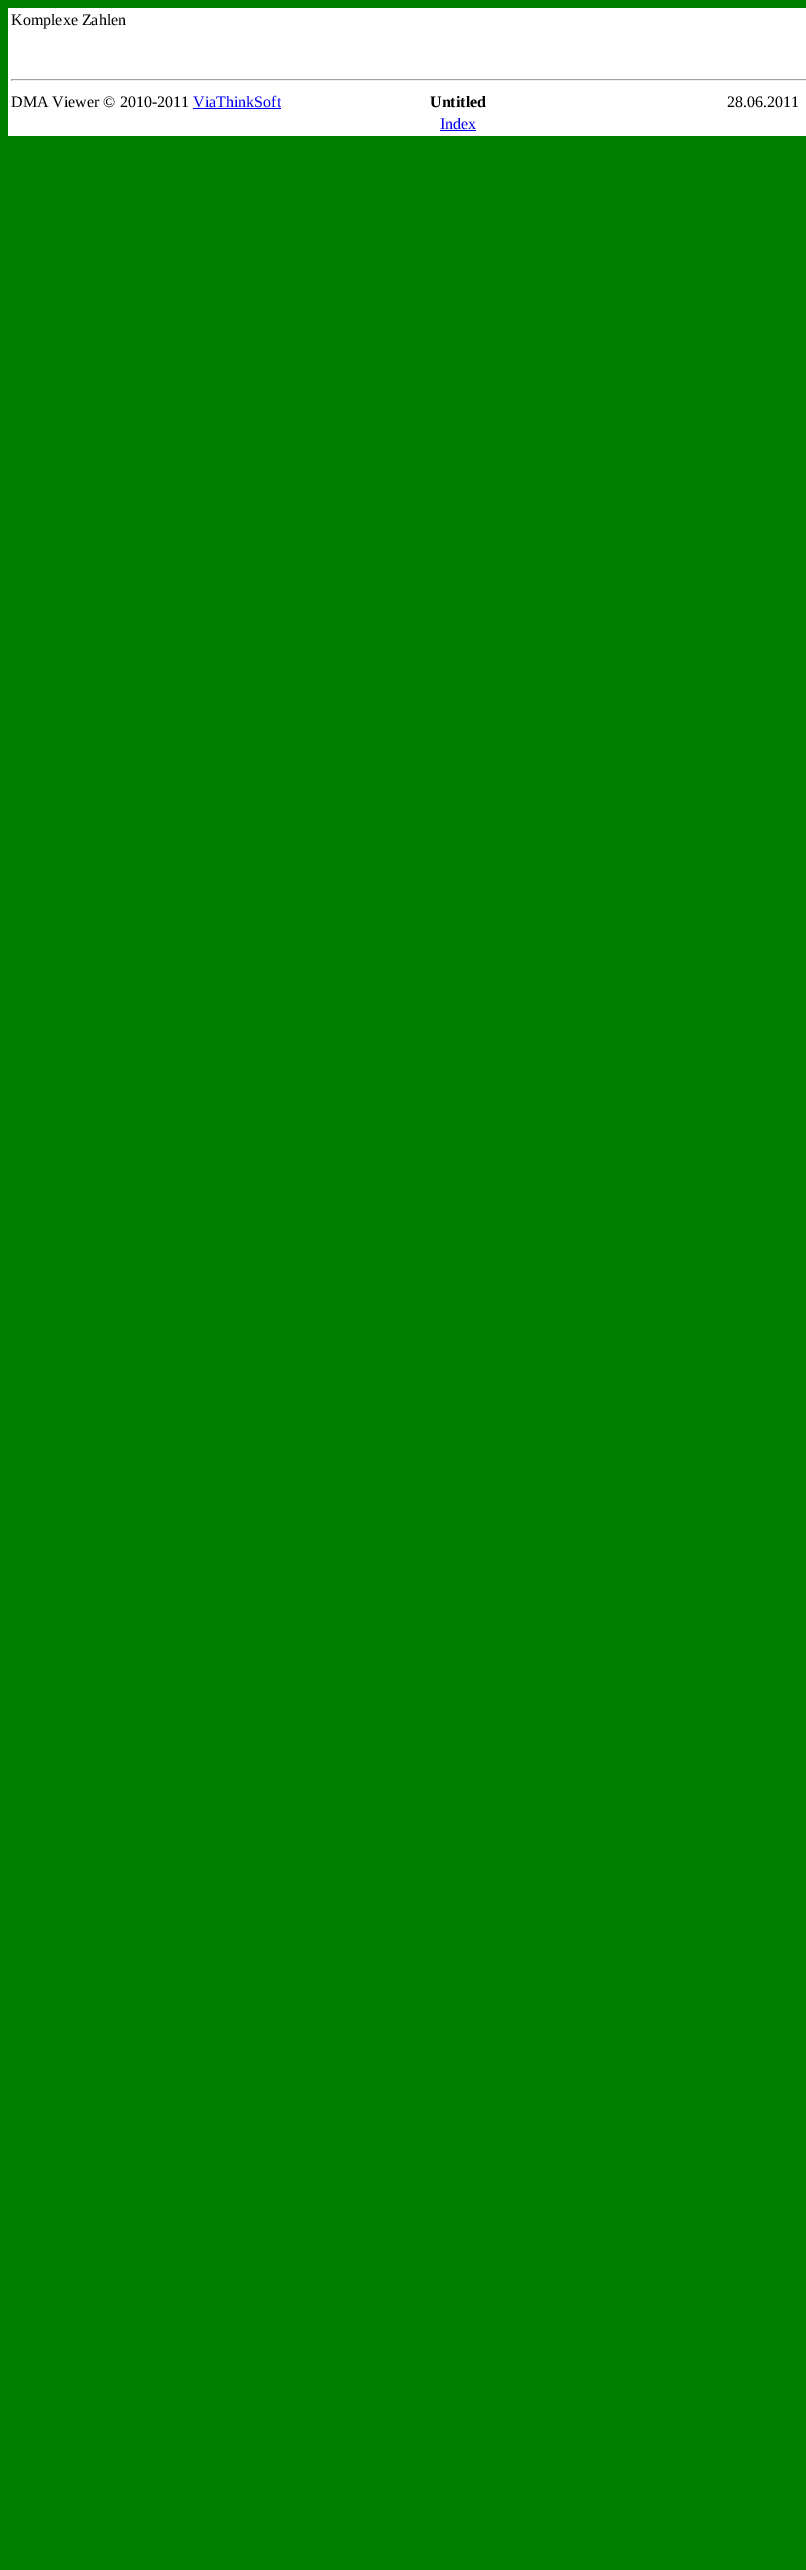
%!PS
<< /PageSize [806 2570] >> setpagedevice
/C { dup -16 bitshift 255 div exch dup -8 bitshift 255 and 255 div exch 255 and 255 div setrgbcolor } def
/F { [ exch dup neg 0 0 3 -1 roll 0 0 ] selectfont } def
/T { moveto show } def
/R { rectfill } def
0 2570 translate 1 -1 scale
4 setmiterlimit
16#008000 C
0 0 806 2570 R
16#FFFFFF C
8 8 798 128 R
/LiberationSerif-Regular 16 F
16#000000 C
(Komplexe Zahlen) 11 25 T
16#9F9F9F C
11 79 795 1 R
16#EEEEEE C
11 80 795 1 R
16#9F9F9F C
11 79 1 2 R
16#000000 C
(DMA Viewer © 2010-2011) 11 107 T
16#0000EE C
(ViaThinkSoft) 193 107 T
193 108 88 1 R
/LiberationSerif-Bold 16 F
16#000000 C
(Untitled) 430 107 T
/LiberationSerif-Regular 16 F
(28.06.2011) 727 107 T
16#0000EE C
(Index) 440 129 T
440 130 36 1 R
showpage
